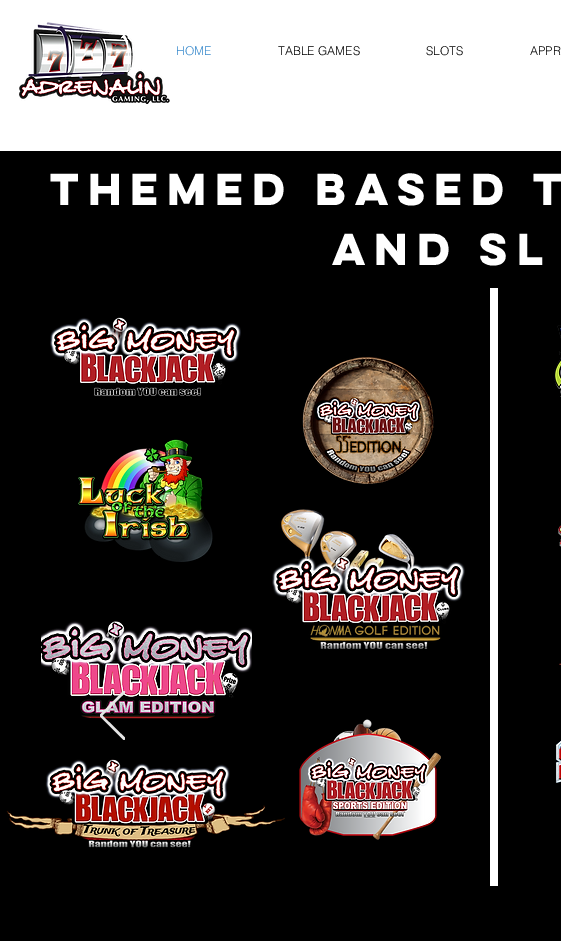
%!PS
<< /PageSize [561 941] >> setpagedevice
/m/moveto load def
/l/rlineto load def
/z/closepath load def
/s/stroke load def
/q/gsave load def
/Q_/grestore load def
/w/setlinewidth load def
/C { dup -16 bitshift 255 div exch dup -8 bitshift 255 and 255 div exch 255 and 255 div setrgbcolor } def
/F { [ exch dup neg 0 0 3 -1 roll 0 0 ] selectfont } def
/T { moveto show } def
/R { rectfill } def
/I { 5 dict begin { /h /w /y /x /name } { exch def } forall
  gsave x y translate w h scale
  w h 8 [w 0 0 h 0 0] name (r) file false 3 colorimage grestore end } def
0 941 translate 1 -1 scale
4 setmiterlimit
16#FFFFFF C
0 0 561 941 R
(1.rgb) 19 22 151 82 I
/helvetica-Light 12 F
16#3588CC C
(HOME) 176 55 T
16#000000 C
(TABLE GAMES) 278 55 T
(SLOTS) 426 55 T
(APPR) 530 55 T
0 151 561 790 R
/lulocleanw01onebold-Bold 40 F
16#FFFFFF C
(Themed Based T) 50 205 T
(AND SL) 332 265 T
(2.rgb) 50 317 191 79 I
(3.rgb) 302 357 132 127 I
490 288 8 598 R
(4.rgb) 554 325 7 72 I
(5.rgb) 558 525 3 22 I
(6.rgb) 559 663 2 2 I
(7.rgb) 555 740 6 43 I
(8.rgb) 78 439 135 123 I
(9.rgb) 272 509 193 140 I
(10.rgb) 41 621 211 98 I
(11.rgb) 6 759 279 89 I
(12.rgb) 299 719 142 121 I
q
100 691 25 49 rectclip
16#E5E5E5 C
1.2 w
124 739.5 m -24 -24 l 24 -24.5 l 1 1 l -23.5 23.5 l 23.5 23 l z s
Q_
showpage
